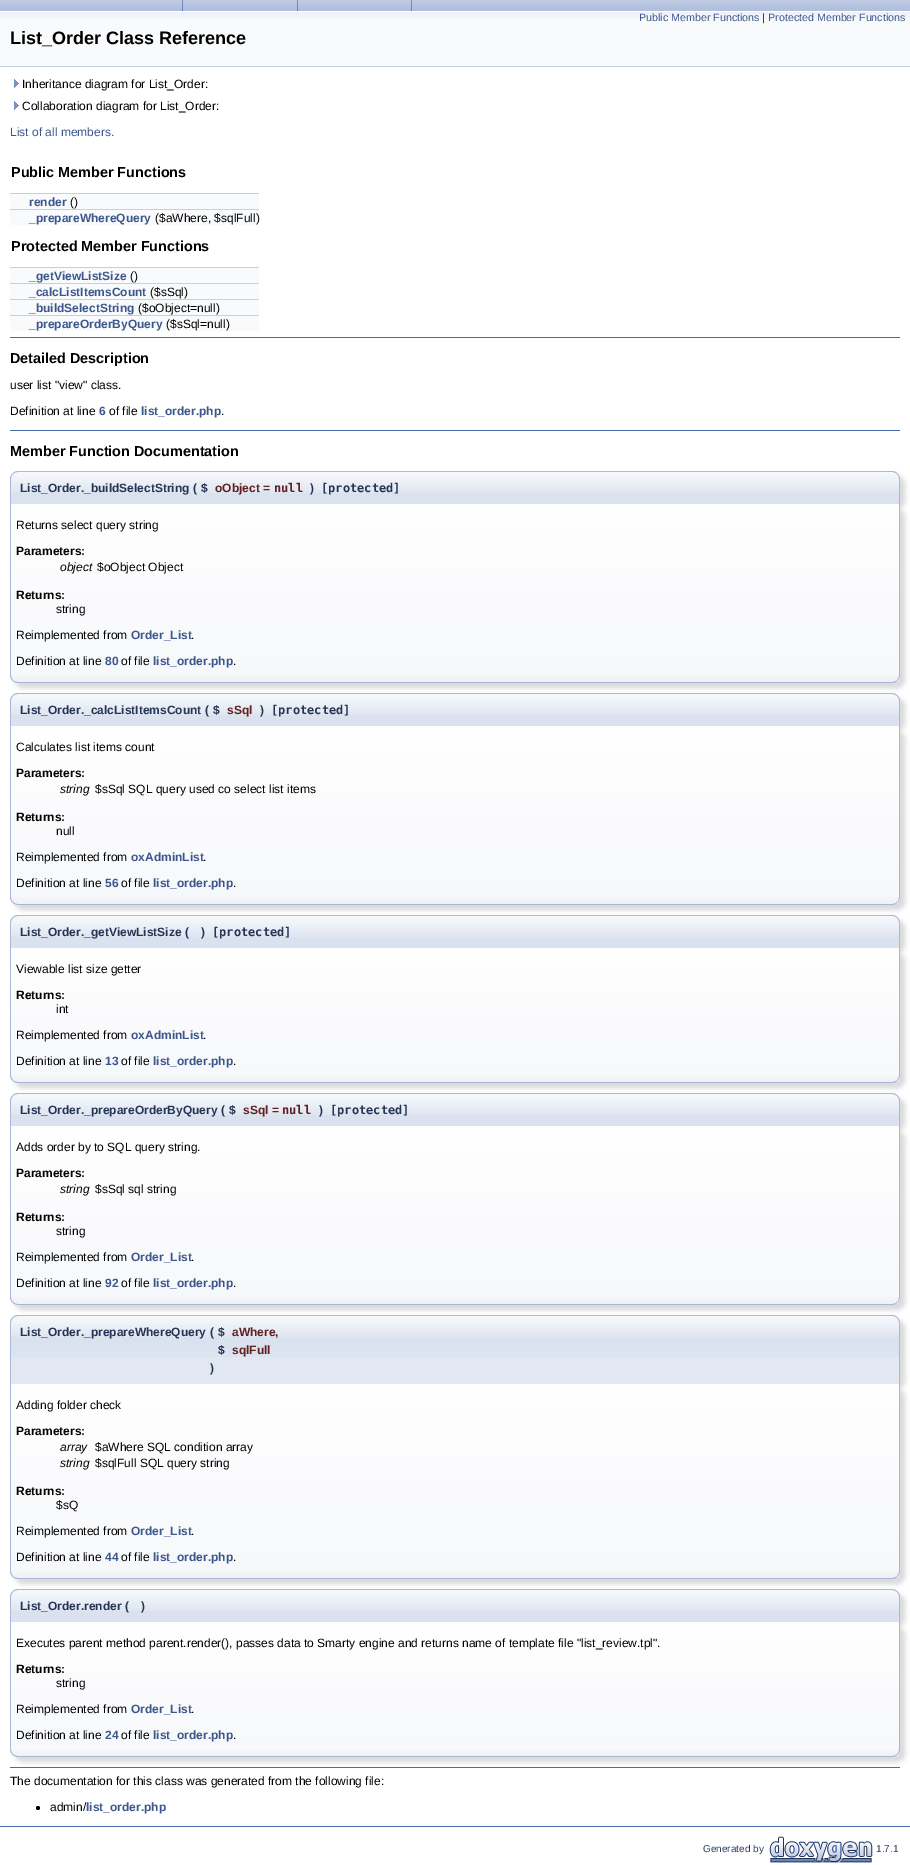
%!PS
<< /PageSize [910 1865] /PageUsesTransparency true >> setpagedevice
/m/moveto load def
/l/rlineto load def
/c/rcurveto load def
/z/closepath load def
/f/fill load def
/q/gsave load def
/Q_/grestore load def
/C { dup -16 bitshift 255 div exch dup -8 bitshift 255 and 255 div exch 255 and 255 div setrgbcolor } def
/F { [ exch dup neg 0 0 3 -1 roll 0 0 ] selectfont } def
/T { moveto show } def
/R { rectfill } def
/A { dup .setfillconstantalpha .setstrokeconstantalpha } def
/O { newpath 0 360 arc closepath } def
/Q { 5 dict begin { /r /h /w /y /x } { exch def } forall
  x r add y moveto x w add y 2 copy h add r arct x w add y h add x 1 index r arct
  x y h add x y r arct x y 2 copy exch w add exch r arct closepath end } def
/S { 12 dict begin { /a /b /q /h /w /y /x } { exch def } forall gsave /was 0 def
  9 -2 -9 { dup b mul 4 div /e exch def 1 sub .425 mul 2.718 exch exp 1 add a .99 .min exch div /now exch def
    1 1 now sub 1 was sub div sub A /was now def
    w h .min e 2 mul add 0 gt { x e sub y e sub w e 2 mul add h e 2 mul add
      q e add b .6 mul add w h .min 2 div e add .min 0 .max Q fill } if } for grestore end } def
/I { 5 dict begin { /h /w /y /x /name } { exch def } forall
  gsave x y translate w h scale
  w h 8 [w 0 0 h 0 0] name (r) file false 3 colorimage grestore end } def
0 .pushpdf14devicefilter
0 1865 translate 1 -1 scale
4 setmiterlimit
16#FFFFFF C
0 0 910 1865 R
(1.rgb) 0 0 910 11 I
(2.rgb) 182 0 1 11 I
(2.rgb) 297 0 1 11 I
(2.rgb) 411 0 1 11 I
16#F9FAFC C
0 19 910 47 R
(3.rgb) 0 11 910 8 I
16#C4CFE5 C
0 66 910 1 R
/LiberationSans-Regular 10.7 F
16#3D578C C
(Public Member Functions) 639 21 T
16#000000 C
(|) 762 21 T
16#3D578C C
(Protected Member Functions) 768 21 T
/LiberationSans-Bold 18 F
16#000000 C
(List_Order Class Reference) 10 44 T
(4.rgb) 14 79 5 9 I
/LiberationSans-Regular 12 F
(Inheritance diagram for List_Order:) 22 88 T
(4.rgb) 14 101 5 9 I
(Collaboration diagram for List_Order:) 22 110 T
16#3D578C C
(List of all members.) 10 136 T
/LiberationSans-Bold 14.4 F
16#000000 C
(Public Member Functions) 11 177 T
16#F9FAFC C
10 194 249 15 R
16#C4CFE5 C
10 193 249 1 R
/LiberationSans-Bold 12 F
16#3D578C C
(render) 29 206 T
/LiberationSans-Regular 12 F
16#000000 C
(\(\)) 70 206 T
16#F9FAFC C
10 210 249 15 R
16#C4CFE5 C
10 209 249 1 R
/LiberationSans-Bold 12 F
16#3D578C C
(_prepareWhereQuery) 29 222 T
/LiberationSans-Regular 12 F
16#000000 C
(\($aWhere, $sqlFull\)) 155 222 T
/LiberationSans-Bold 14.4 F
(Protected Member Functions) 11 251 T
16#F9FAFC C
10 268 249 15 R
16#C4CFE5 C
10 267 249 1 R
/LiberationSans-Bold 12 F
16#3D578C C
(_getViewListSize) 29 280 T
/LiberationSans-Regular 12 F
16#000000 C
(\(\)) 130 280 T
16#F9FAFC C
10 284 249 15 R
16#C4CFE5 C
10 283 249 1 R
/LiberationSans-Bold 12 F
16#3D578C C
(_calcListItemsCount) 29 296 T
/LiberationSans-Regular 12 F
16#000000 C
(\($sSql\)) 150 296 T
16#F9FAFC C
10 300 249 15 R
16#C4CFE5 C
10 299 249 1 R
/LiberationSans-Bold 12 F
16#3D578C C
(_buildSelectString) 29 312 T
/LiberationSans-Regular 12 F
16#000000 C
(\($oObject=null\)) 138 312 T
16#F9FAFC C
10 316 249 15 R
16#C4CFE5 C
10 315 249 1 R
/LiberationSans-Bold 12 F
16#3D578C C
(_prepareOrderByQuery) 29 328 T
/LiberationSans-Regular 12 F
16#000000 C
(\($sSql=null\)) 166 328 T
16#4A6AAA C
10 337 890 1 R
/LiberationSans-Bold 14.4 F
16#000000 C
(Detailed Description) 10 363 T
/LiberationSans-Regular 12 F
(user list "view" class.) 10 389 T
(Definition at line) 10 415 T
/LiberationSans-Bold 12 F
16#3D578C C
(6) 99 415 T
/LiberationSans-Regular 12 F
16#000000 C
(of file) 109 415 T
/LiberationSans-Bold 12 F
16#3D578C C
(list_order.php) 141 415 T
/LiberationSans-Regular 12 F
16#000000 C
(.) 221 415 T
16#4A6AAA C
10 430 890 1 R
/LiberationSans-Bold 14.4 F
16#000000 C
(Member Function Documentation) 10 456 T
15 476 890 33 8 2.5 .15 S
16#E2E8F2 C
18 471 m 874 0 l 4.5 0 8 3.5 8 8 c 0 25 l -890 0 l 0 -25 l 0 -4.5 3.5 -8 8 -8 c z f
(5.rgb) 10 472 890 32 I
16#A8B8D9 C
18 471 m 874 0 l 4 0 8 4 8 8 c 0 25 l -890 0 l 0 -25 l 0 -4 4 -8 8 -8 c z 18 472 m 874 0 l 4 0 7 3 7 7 c 0 25 l -888 0 l 0 -25 l 0 -4 3 -7 7 -7 c z eofill
/LiberationSans-Bold 12 F
16#253555 C
(List_Order._buildSelectString) 20 492 T
(\() 193 492 T
($) 201 492 T
16#602020 C
(oObject =) 215 492 T
/DejaVuSansMono-Bold 12 F
(null) 274 492 T
/LiberationSans-Bold 12 F
16#253555 C
(\)) 310 492 T
/DejaVuSansMono-Bold 12 F
([protected]) 321 492 T
16#000000 C
15 509 890 179 8 2.5 .15 S
q
10 504 m 890 0 l 0 171 l 0 4.5 -3.5 8 -8 8 c -874 0 l -4.5 0 -8 -3.5 -8 -8 c z clip newpath
q 10 504 m 890 0 l 0 178 l -890 0 l z clip newpath
<< /ShadingType 2 /ColorSpace /DeviceRGB /Coords [455 504 455 682] /Extend [true true] /Function << /FunctionType 3 /Domain [0 1] /Functions [<< /FunctionType 2 /Domain [0 1] /C0 [1 1 1] /C1 [.969 .973 .984] /N 1 >> << /FunctionType 2 /Domain [0 1] /C0 [.969 .973 .984] /C1 [.933 .945 .969] /N 1 >>] /Bounds [.95] /Encode [0 1 0 1] >> >> shfill Q_
Q_
16#A8B8D9 C
10 504 m 890 0 l 0 171 l 0 4 -4 8 -8 8 c -874 0 l -4 0 -8 -4 -8 -8 c z 11 504 m 888 0 l 0 171 l 0 4 -3 7 -7 7 c -874 0 l -4 0 -7 -3 -7 -7 c z eofill
/LiberationSans-Regular 12 F
16#000000 C
(Returns select query string) 16 529 T
/LiberationSans-Bold 12 F
(Parameters:) 16 555 T
/LiberationSans-Italic 12 F
(object) 60 571 T
/LiberationSans-Regular 12 F
($oObject Object) 97 571 T
/LiberationSans-Bold 12 F
(Returns:) 16 599 T
/LiberationSans-Regular 12 F
(string) 56 613 T
(Reimplemented from) 16 639 T
/LiberationSans-Bold 12 F
16#3D578C C
(Order_List) 131 639 T
/LiberationSans-Regular 12 F
16#000000 C
(.) 191 639 T
(Definition at line) 16 665 T
/LiberationSans-Bold 12 F
16#3D578C C
(80) 105 665 T
/LiberationSans-Regular 12 F
16#000000 C
(of file) 121 665 T
/LiberationSans-Bold 12 F
16#3D578C C
(list_order.php) 153 665 T
/LiberationSans-Regular 12 F
16#000000 C
(.) 233 665 T
15 698 890 33 8 2.5 .15 S
16#E2E8F2 C
18 693 m 874 0 l 4.5 0 8 3.5 8 8 c 0 25 l -890 0 l 0 -25 l 0 -4.5 3.5 -8 8 -8 c z f
(5.rgb) 10 694 890 32 I
16#A8B8D9 C
18 693 m 874 0 l 4 0 8 4 8 8 c 0 25 l -890 0 l 0 -25 l 0 -4 4 -8 8 -8 c z 18 694 m 874 0 l 4 0 7 3 7 7 c 0 25 l -888 0 l 0 -25 l 0 -4 3 -7 7 -7 c z eofill
/LiberationSans-Bold 12 F
16#253555 C
(List_Order._calcListItemsCount) 20 714 T
(\() 205 714 T
($) 213 714 T
16#602020 C
(sSql) 227 714 T
16#253555 C
(\)) 260 714 T
/DejaVuSansMono-Bold 12 F
([protected]) 271 714 T
16#000000 C
15 731 890 179 8 2.5 .15 S
q
10 726 m 890 0 l 0 171 l 0 4.5 -3.5 8 -8 8 c -874 0 l -4.5 0 -8 -3.5 -8 -8 c z clip newpath
q 10 726 m 890 0 l 0 178 l -890 0 l z clip newpath
<< /ShadingType 2 /ColorSpace /DeviceRGB /Coords [455 726 455 904] /Extend [true true] /Function << /FunctionType 3 /Domain [0 1] /Functions [<< /FunctionType 2 /Domain [0 1] /C0 [1 1 1] /C1 [.969 .973 .984] /N 1 >> << /FunctionType 2 /Domain [0 1] /C0 [.969 .973 .984] /C1 [.933 .945 .969] /N 1 >>] /Bounds [.95] /Encode [0 1 0 1] >> >> shfill Q_
Q_
16#A8B8D9 C
10 726 m 890 0 l 0 171 l 0 4 -4 8 -8 8 c -874 0 l -4 0 -8 -4 -8 -8 c z 11 726 m 888 0 l 0 171 l 0 4 -3 7 -7 7 c -874 0 l -4 0 -7 -3 -7 -7 c z eofill
/LiberationSans-Regular 12 F
16#000000 C
(Calculates list items count) 16 751 T
/LiberationSans-Bold 12 F
(Parameters:) 16 777 T
/LiberationSans-Italic 12 F
(string) 60 793 T
/LiberationSans-Regular 12 F
($sSql SQL query used co select list items) 95 793 T
/LiberationSans-Bold 12 F
(Returns:) 16 821 T
/LiberationSans-Regular 12 F
(null) 56 835 T
(Reimplemented from) 16 861 T
/LiberationSans-Bold 12 F
16#3D578C C
(oxAdminList) 131 861 T
/LiberationSans-Regular 12 F
16#000000 C
(.) 203 861 T
(Definition at line) 16 887 T
/LiberationSans-Bold 12 F
16#3D578C C
(56) 105 887 T
/LiberationSans-Regular 12 F
16#000000 C
(of file) 121 887 T
/LiberationSans-Bold 12 F
16#3D578C C
(list_order.php) 153 887 T
/LiberationSans-Regular 12 F
16#000000 C
(.) 233 887 T
15 920 890 33 8 2.5 .15 S
16#E2E8F2 C
18 915 m 874 0 l 4.5 0 8 3.5 8 8 c 0 25 l -890 0 l 0 -25 l 0 -4.5 3.5 -8 8 -8 c z f
(5.rgb) 10 916 890 32 I
16#A8B8D9 C
18 915 m 874 0 l 4 0 8 4 8 8 c 0 25 l -890 0 l 0 -25 l 0 -4 4 -8 8 -8 c z 18 916 m 874 0 l 4 0 7 3 7 7 c 0 25 l -888 0 l 0 -25 l 0 -4 3 -7 7 -7 c z eofill
/LiberationSans-Bold 12 F
16#253555 C
(List_Order._getViewListSize) 20 936 T
(\() 185 936 T
(\)) 201 936 T
/DejaVuSansMono-Bold 12 F
([protected]) 212 936 T
16#000000 C
15 953 890 135 8 2.5 .15 S
q
10 948 m 890 0 l 0 127 l 0 4.5 -3.5 8 -8 8 c -874 0 l -4.5 0 -8 -3.5 -8 -8 c z clip newpath
q 10 948 m 890 0 l 0 134 l -890 0 l z clip newpath
<< /ShadingType 2 /ColorSpace /DeviceRGB /Coords [455 948 455 1082] /Extend [true true] /Function << /FunctionType 3 /Domain [0 1] /Functions [<< /FunctionType 2 /Domain [0 1] /C0 [1 1 1] /C1 [.969 .973 .984] /N 1 >> << /FunctionType 2 /Domain [0 1] /C0 [.969 .973 .984] /C1 [.933 .945 .969] /N 1 >>] /Bounds [.95] /Encode [0 1 0 1] >> >> shfill Q_
Q_
16#A8B8D9 C
10 948 m 890 0 l 0 127 l 0 4 -4 8 -8 8 c -874 0 l -4 0 -8 -4 -8 -8 c z 11 948 m 888 0 l 0 127 l 0 4 -3 7 -7 7 c -874 0 l -4 0 -7 -3 -7 -7 c z eofill
/LiberationSans-Regular 12 F
16#000000 C
(Viewable list size getter) 16 973 T
/LiberationSans-Bold 12 F
(Returns:) 16 999 T
/LiberationSans-Regular 12 F
(int) 56 1013 T
(Reimplemented from) 16 1039 T
/LiberationSans-Bold 12 F
16#3D578C C
(oxAdminList) 131 1039 T
/LiberationSans-Regular 12 F
16#000000 C
(.) 203 1039 T
(Definition at line) 16 1065 T
/LiberationSans-Bold 12 F
16#3D578C C
(13) 105 1065 T
/LiberationSans-Regular 12 F
16#000000 C
(of file) 121 1065 T
/LiberationSans-Bold 12 F
16#3D578C C
(list_order.php) 153 1065 T
/LiberationSans-Regular 12 F
16#000000 C
(.) 233 1065 T
15 1098 890 33 8 2.5 .15 S
16#E2E8F2 C
18 1093 m 874 0 l 4.5 0 8 3.5 8 8 c 0 25 l -890 0 l 0 -25 l 0 -4.5 3.5 -8 8 -8 c z f
(5.rgb) 10 1094 890 32 I
16#A8B8D9 C
18 1093 m 874 0 l 4 0 8 4 8 8 c 0 25 l -890 0 l 0 -25 l 0 -4 4 -8 8 -8 c z 18 1094 m 874 0 l 4 0 7 3 7 7 c 0 25 l -888 0 l 0 -25 l 0 -4 3 -7 7 -7 c z eofill
/LiberationSans-Bold 12 F
16#253555 C
(List_Order._prepareOrderByQuery) 20 1114 T
(\() 221 1114 T
($) 229 1114 T
16#602020 C
(sSql =) 243 1114 T
/DejaVuSansMono-Bold 12 F
(null) 282 1114 T
/LiberationSans-Bold 12 F
16#253555 C
(\)) 319 1114 T
/DejaVuSansMono-Bold 12 F
([protected]) 330 1114 T
16#000000 C
15 1131 890 179 8 2.5 .15 S
q
10 1126 m 890 0 l 0 171 l 0 4.5 -3.5 8 -8 8 c -874 0 l -4.5 0 -8 -3.5 -8 -8 c z clip newpath
q 10 1126 m 890 0 l 0 178 l -890 0 l z clip newpath
<< /ShadingType 2 /ColorSpace /DeviceRGB /Coords [455 1126 455 1304] /Extend [true true] /Function << /FunctionType 3 /Domain [0 1] /Functions [<< /FunctionType 2 /Domain [0 1] /C0 [1 1 1] /C1 [.969 .973 .984] /N 1 >> << /FunctionType 2 /Domain [0 1] /C0 [.969 .973 .984] /C1 [.933 .945 .969] /N 1 >>] /Bounds [.95] /Encode [0 1 0 1] >> >> shfill Q_
Q_
16#A8B8D9 C
10 1126 m 890 0 l 0 171 l 0 4 -4 8 -8 8 c -874 0 l -4 0 -8 -4 -8 -8 c z 11 1126 m 888 0 l 0 171 l 0 4 -3 7 -7 7 c -874 0 l -4 0 -7 -3 -7 -7 c z eofill
/LiberationSans-Regular 12 F
16#000000 C
(Adds order by to SQL query string.) 16 1151 T
/LiberationSans-Bold 12 F
(Parameters:) 16 1177 T
/LiberationSans-Italic 12 F
(string) 60 1193 T
/LiberationSans-Regular 12 F
($sSql sql string) 95 1193 T
/LiberationSans-Bold 12 F
(Returns:) 16 1221 T
/LiberationSans-Regular 12 F
(string) 56 1235 T
(Reimplemented from) 16 1261 T
/LiberationSans-Bold 12 F
16#3D578C C
(Order_List) 131 1261 T
/LiberationSans-Regular 12 F
16#000000 C
(.) 191 1261 T
(Definition at line) 16 1287 T
/LiberationSans-Bold 12 F
16#3D578C C
(92) 105 1287 T
/LiberationSans-Regular 12 F
16#000000 C
(of file) 121 1287 T
/LiberationSans-Bold 12 F
16#3D578C C
(list_order.php) 153 1287 T
/LiberationSans-Regular 12 F
16#000000 C
(.) 233 1287 T
15 1320 890 69 8 2.5 .15 S
16#E2E8F2 C
18 1315 m 874 0 l 4.5 0 8 3.5 8 8 c 0 61 l -890 0 l 0 -61 l 0 -4.5 3.5 -8 8 -8 c z f
(6.rgb) 10 1316 890 41 I
16#A8B8D9 C
18 1315 m 874 0 l 4 0 8 4 8 8 c 0 61 l -890 0 l 0 -61 l 0 -4 4 -8 8 -8 c z 18 1316 m 874 0 l 4 0 7 3 7 7 c 0 61 l -888 0 l 0 -61 l 0 -4 3 -7 7 -7 c z eofill
/LiberationSans-Bold 12 F
16#253555 C
(List_Order._prepareWhereQuery) 20 1336 T
(\() 210 1336 T
($) 218 1336 T
16#602020 C
(aWhere,) 232 1336 T
16#253555 C
($) 218 1354 T
16#602020 C
(sqlFull) 232 1354 T
16#253555 C
(\)) 210 1372 T
16#000000 C
15 1389 890 195 8 2.5 .15 S
q
10 1384 m 890 0 l 0 187 l 0 4.5 -3.5 8 -8 8 c -874 0 l -4.5 0 -8 -3.5 -8 -8 c z clip newpath
q 10 1384 m 890 0 l 0 194 l -890 0 l z clip newpath
<< /ShadingType 2 /ColorSpace /DeviceRGB /Coords [455 1384 455 1578] /Extend [true true] /Function << /FunctionType 3 /Domain [0 1] /Functions [<< /FunctionType 2 /Domain [0 1] /C0 [1 1 1] /C1 [.969 .973 .984] /N 1 >> << /FunctionType 2 /Domain [0 1] /C0 [.969 .973 .984] /C1 [.933 .945 .969] /N 1 >>] /Bounds [.95] /Encode [0 1 0 1] >> >> shfill Q_
Q_
16#A8B8D9 C
10 1384 m 890 0 l 0 187 l 0 4 -4 8 -8 8 c -874 0 l -4 0 -8 -4 -8 -8 c z 11 1384 m 888 0 l 0 187 l 0 4 -3 7 -7 7 c -874 0 l -4 0 -7 -3 -7 -7 c z eofill
/LiberationSans-Regular 12 F
16#000000 C
(Adding folder check) 16 1409 T
/LiberationSans-Bold 12 F
(Parameters:) 16 1435 T
/LiberationSans-Italic 12 F
(array) 60 1451 T
/LiberationSans-Regular 12 F
($aWhere SQL condition array) 95 1451 T
/LiberationSans-Italic 12 F
(string) 60 1467 T
/LiberationSans-Regular 12 F
($sqlFull SQL query string) 95 1467 T
/LiberationSans-Bold 12 F
(Returns:) 16 1495 T
/LiberationSans-Regular 12 F
($sQ) 56 1509 T
(Reimplemented from) 16 1535 T
/LiberationSans-Bold 12 F
16#3D578C C
(Order_List) 131 1535 T
/LiberationSans-Regular 12 F
16#000000 C
(.) 191 1535 T
(Definition at line) 16 1561 T
/LiberationSans-Bold 12 F
16#3D578C C
(44) 105 1561 T
/LiberationSans-Regular 12 F
16#000000 C
(of file) 121 1561 T
/LiberationSans-Bold 12 F
16#3D578C C
(list_order.php) 153 1561 T
/LiberationSans-Regular 12 F
16#000000 C
(.) 233 1561 T
15 1594 890 33 8 2.5 .15 S
16#E2E8F2 C
18 1589 m 874 0 l 4.5 0 8 3.5 8 8 c 0 25 l -890 0 l 0 -25 l 0 -4.5 3.5 -8 8 -8 c z f
(5.rgb) 10 1590 890 32 I
16#A8B8D9 C
18 1589 m 874 0 l 4 0 8 4 8 8 c 0 25 l -890 0 l 0 -25 l 0 -4 4 -8 8 -8 c z 18 1590 m 874 0 l 4 0 7 3 7 7 c 0 25 l -888 0 l 0 -25 l 0 -4 3 -7 7 -7 c z eofill
/LiberationSans-Bold 12 F
16#253555 C
(List_Order.render) 20 1610 T
(\() 125 1610 T
(\)) 141 1610 T
16#000000 C
15 1627 890 135 8 2.5 .15 S
q
10 1622 m 890 0 l 0 127 l 0 4.5 -3.5 8 -8 8 c -874 0 l -4.5 0 -8 -3.5 -8 -8 c z clip newpath
q 10 1622 m 890 0 l 0 134 l -890 0 l z clip newpath
<< /ShadingType 2 /ColorSpace /DeviceRGB /Coords [455 1622 455 1756] /Extend [true true] /Function << /FunctionType 3 /Domain [0 1] /Functions [<< /FunctionType 2 /Domain [0 1] /C0 [1 1 1] /C1 [.969 .973 .984] /N 1 >> << /FunctionType 2 /Domain [0 1] /C0 [.969 .973 .984] /C1 [.933 .945 .969] /N 1 >>] /Bounds [.95] /Encode [0 1 0 1] >> >> shfill Q_
Q_
16#A8B8D9 C
10 1622 m 890 0 l 0 127 l 0 4 -4 8 -8 8 c -874 0 l -4 0 -8 -4 -8 -8 c z 11 1622 m 888 0 l 0 127 l 0 4 -3 7 -7 7 c -874 0 l -4 0 -7 -3 -7 -7 c z eofill
/LiberationSans-Regular 12 F
16#000000 C
(Executes parent method parent.render\(\), passes data to Smarty engine and returns name of template file "list_review.tpl".) 16 1647 T
/LiberationSans-Bold 12 F
(Returns:) 16 1673 T
/LiberationSans-Regular 12 F
(string) 56 1687 T
(Reimplemented from) 16 1713 T
/LiberationSans-Bold 12 F
16#3D578C C
(Order_List) 131 1713 T
/LiberationSans-Regular 12 F
16#000000 C
(.) 191 1713 T
(Definition at line) 16 1739 T
/LiberationSans-Bold 12 F
16#3D578C C
(24) 105 1739 T
/LiberationSans-Regular 12 F
16#000000 C
(of file) 121 1739 T
/LiberationSans-Bold 12 F
16#3D578C C
(list_order.php) 153 1739 T
/LiberationSans-Regular 12 F
16#000000 C
(.) 233 1739 T
16#4A6AAA C
10 1767 890 1 R
16#000000 C
(The documentation for this class was generated from the following file:) 10 1785 T
38 1808 2 O f
(admin/) 50 1811 T
/LiberationSans-Bold 12 F
16#3D578C C
(list_order.php) 86 1811 T
16#4A6AAA C
0 1826 910 1 R
/LiberationSans-Regular 10 F
16#2A3D61 C
(Generated by) 703 1852 T
(7.rgb) 769 1836 104 27 I
(1.7.1) 876 1852 T
.poppdf14devicefilter showpage
